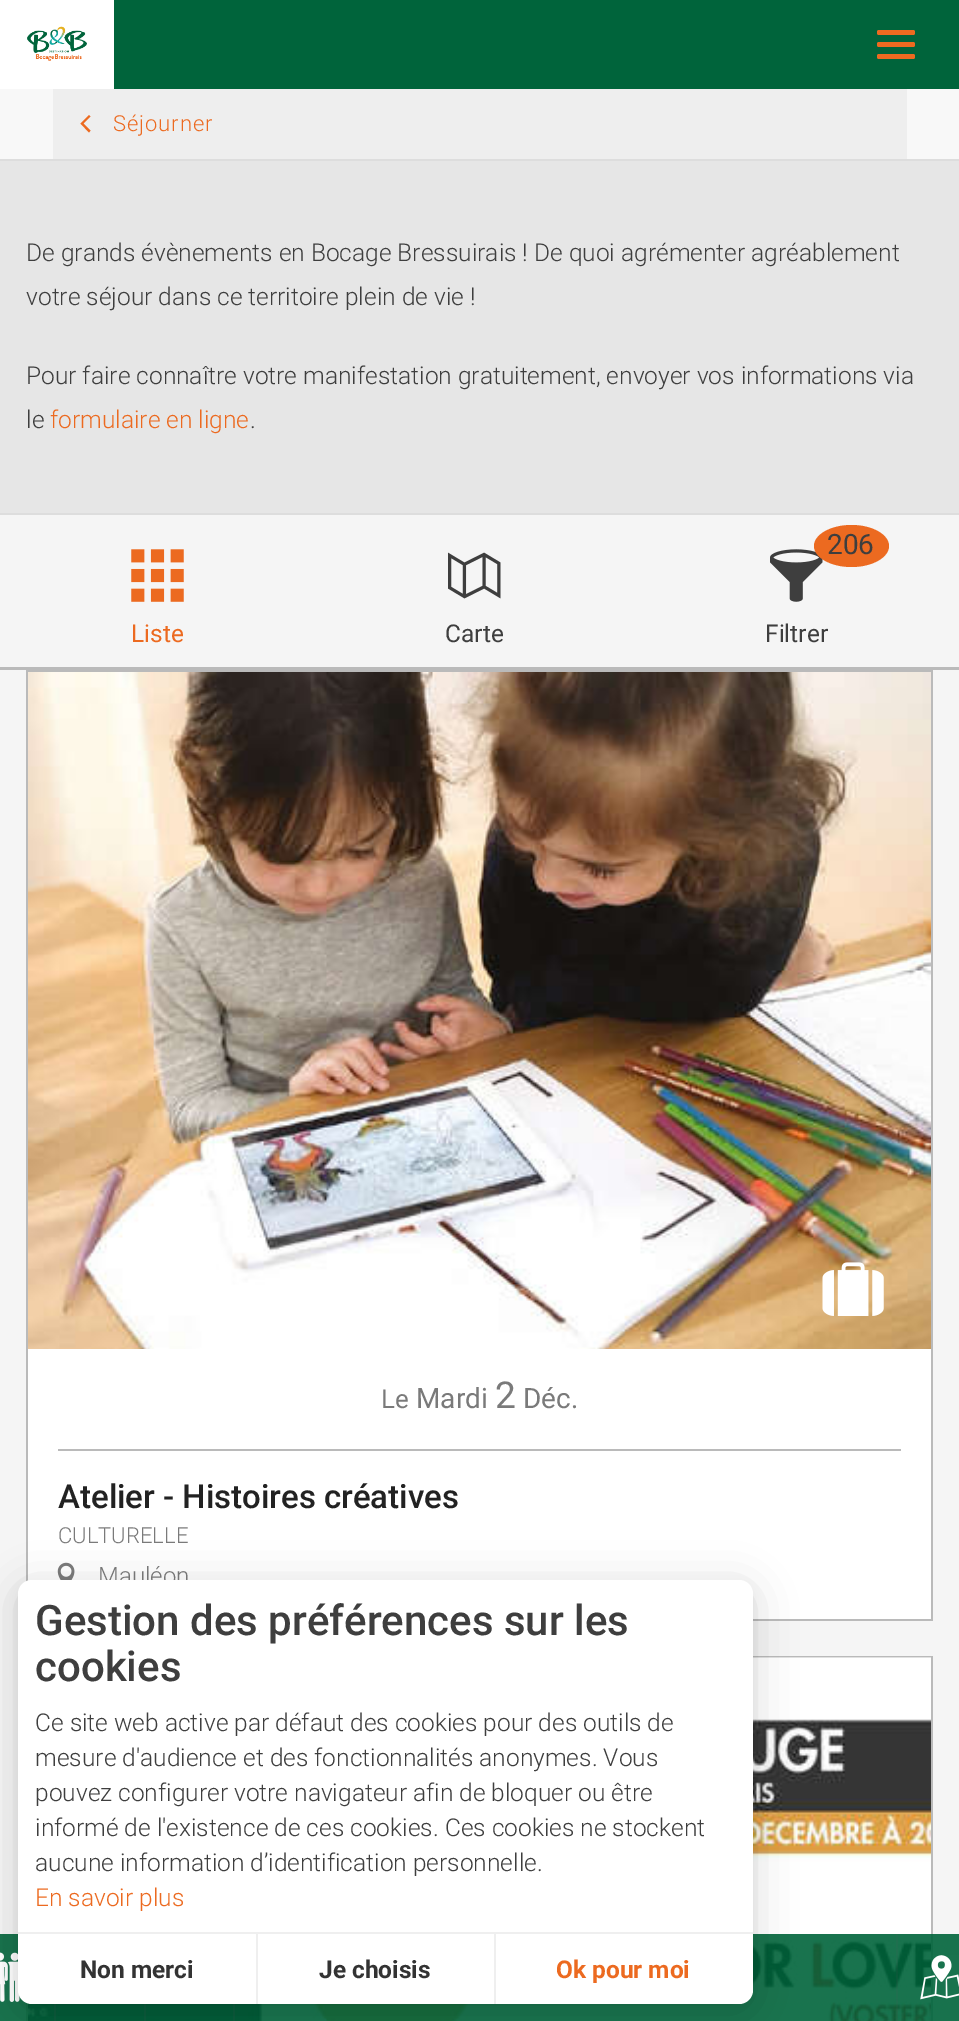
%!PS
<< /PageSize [959 2021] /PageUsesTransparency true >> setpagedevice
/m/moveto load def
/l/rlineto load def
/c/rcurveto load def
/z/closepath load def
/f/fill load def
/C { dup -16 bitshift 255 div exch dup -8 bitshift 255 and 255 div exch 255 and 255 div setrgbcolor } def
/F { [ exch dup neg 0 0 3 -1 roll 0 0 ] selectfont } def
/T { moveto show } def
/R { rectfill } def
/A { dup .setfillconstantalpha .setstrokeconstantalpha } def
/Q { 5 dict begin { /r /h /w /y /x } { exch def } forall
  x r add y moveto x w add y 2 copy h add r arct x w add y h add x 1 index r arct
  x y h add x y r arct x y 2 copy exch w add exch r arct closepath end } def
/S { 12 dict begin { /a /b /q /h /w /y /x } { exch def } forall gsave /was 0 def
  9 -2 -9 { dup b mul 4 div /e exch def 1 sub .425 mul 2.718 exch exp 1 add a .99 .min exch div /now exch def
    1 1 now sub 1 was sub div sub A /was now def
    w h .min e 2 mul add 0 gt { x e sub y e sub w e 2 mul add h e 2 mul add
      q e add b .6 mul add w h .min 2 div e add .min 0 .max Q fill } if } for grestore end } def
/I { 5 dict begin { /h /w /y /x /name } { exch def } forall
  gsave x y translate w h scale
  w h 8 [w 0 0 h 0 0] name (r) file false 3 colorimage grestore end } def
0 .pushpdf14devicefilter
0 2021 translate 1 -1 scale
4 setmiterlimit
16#F8F8F8 C
0 0 959 2021 R
16#00643B C
114 0 845 89 R
16#FFFFFF C
0 0 114 89 R
(1.rgb) 27 26 60 35 I
16#EC6A20 C
877 30 38 5 2 Q f
877 42 38 5 2 Q f
877 54 38 5 2 Q f
16#EEEEEE C
53 89 854 70 R
16#EC6A20 C
90.5 116.5 m -1.5 -1.5 l -8.5 8.5 l 8.5 9 l 1.5 -2 l -7 -7 l z f
/Roboto-Light 22 F
113 131 m .9 0 (Séjourner) ashow
16#E6E6E6 C
0 161 959 352 R
16#DDDDDD C
0 159 959 2 R
0 513 959 2 R
/Roboto-Light 24.5 F
16#3E3E3E C
(De grands évènements en Bocage Bressuirais ! De quoi agrémenter agréablement) 26 261 T
(votre séjour dans ce territoire plein de vie !) 26 305 T
(Pour faire connaître votre manifestation gratuitement, envoyer vos informations via) 26 384 T
(le) 26 428 T
16#EC6A20 C
(formulaire en ligne) 50 428 T
16#3E3E3E C
(.) 250 428 T
16#F5F5F5 C
0 515 959 152 R
16#BABABA C
0 667 959 3 R
(2.rgb) 131 549 53 53 I
/Roboto-Regular 24.5 F
16#EC6A20 C
(Liste) 131 642 T
(3.rgb) 448 552 53 47 I
16#3E3E3E C
(Carte) 445 642 T
(4.rgb) 770 549 53 53 I
16#EC6A20 C
851.5 525 m 20.5 0 37.5 9.5 37.5 21 c 0 11.5 -17 21 -37.5 21 c -20.5 0 -37.5 -9.5 -37.5 -21 c 0 -11.5 17 -21 37.5 -21 c z f
/Roboto-Regular 28 F
16#3E3E3E C
(206) 827 554 T
/Roboto-Regular 24.5 F
(Filtrer) 765 642 T
16#F5F5F5 C
0 670 959 1351 R
16#BABABA C
26 670 907 2 R
931 670 2 951 R
26 670 2 912 R
(5.rgb) 28 672 903 677 I
16#FFFFFF C
28 1349 903 270 R
16#BABABA C
753 1619 180 2 R
(6.rgb) 822 1262 62 54 I
/Roboto-Regular 26 F
16#7A7A7A C
(Le) 381 1408 T
/Roboto-Regular 28 F
(Mardi) 416 1408 T
/Roboto-Regular 37 F
(2) 495 1408 T
/Roboto-Regular 28 F
(Déc.) 523 1408 T
16#BABABA C
58 1449 843 2 R
/Roboto-Medium 33 F
16#222222 C
(Atelier - Histoires créatives) 58 1508 T
/Roboto-Light 22 F
16#7A7A7A C
(CULTURELLE) 58 1543 T
(7.rgb) 57 1562 18 18 I
/Roboto-Light 24 F
(Mauléon) 98 1584 T
16#BABABA C
753 1656 180 2 R
931 1656 2 365 R
26 2002 2 19 R
(8.rgb) 28 1657 903 364 I
0.9 A
16#00643B C
0 1934 959 87 R
1 A
(9.rgb) 0 1952 20 50 I
0.1 A
16#555555 C
896 1934 2 87 R
1 A
(10.rgb) 920 1955 39 45 I
16#0A5A3A C
54 2004 2 17 R
144 2004 2 17 R
0.1 A
16#555555 C
233 2004 2 17 R
1 A
16#000000 C
18 1584 735 423 14 5 .05 S
18 1587 735 424 14 21 .15 S
16#FFFFFF C
18 1580 735 424 14 Q f
/Roboto-Medium 42 F
16#3E3E3E C
(Gestion des préférences sur les) 35 1635 T
(cookies) 35 1681 T
/Roboto-Light 24.5 F
(Ce site web active par défaut des cookies pour des outils de) 35 1731 T
(mesure d'audience et des fonctionnalités anonymes. Vous) 35 1766 T
(pouvez configurer votre navigateur afin de bloquer ou être) 35 1801 T
(informé de l'existence de ces cookies. Ces cookies ne stockent) 35 1836 T
(aucune information d’identification personnelle.) 35 1871 T
16#EC6A20 C
(En savoir plus) 35 1906 T
16#EFEFEF C
18 1932 735 2 R
256 1934 2 70 R
/Roboto-Bold 24.5 F
16#333333 C
(Non merci) 80 1978 T
16#EFEFEF C
494 1934 2 70 R
16#333333 C
(Je choisis) 319 1978 T
16#EC6A20 C
(Ok pour moi) 556 1978 T
.poppdf14devicefilter showpage
